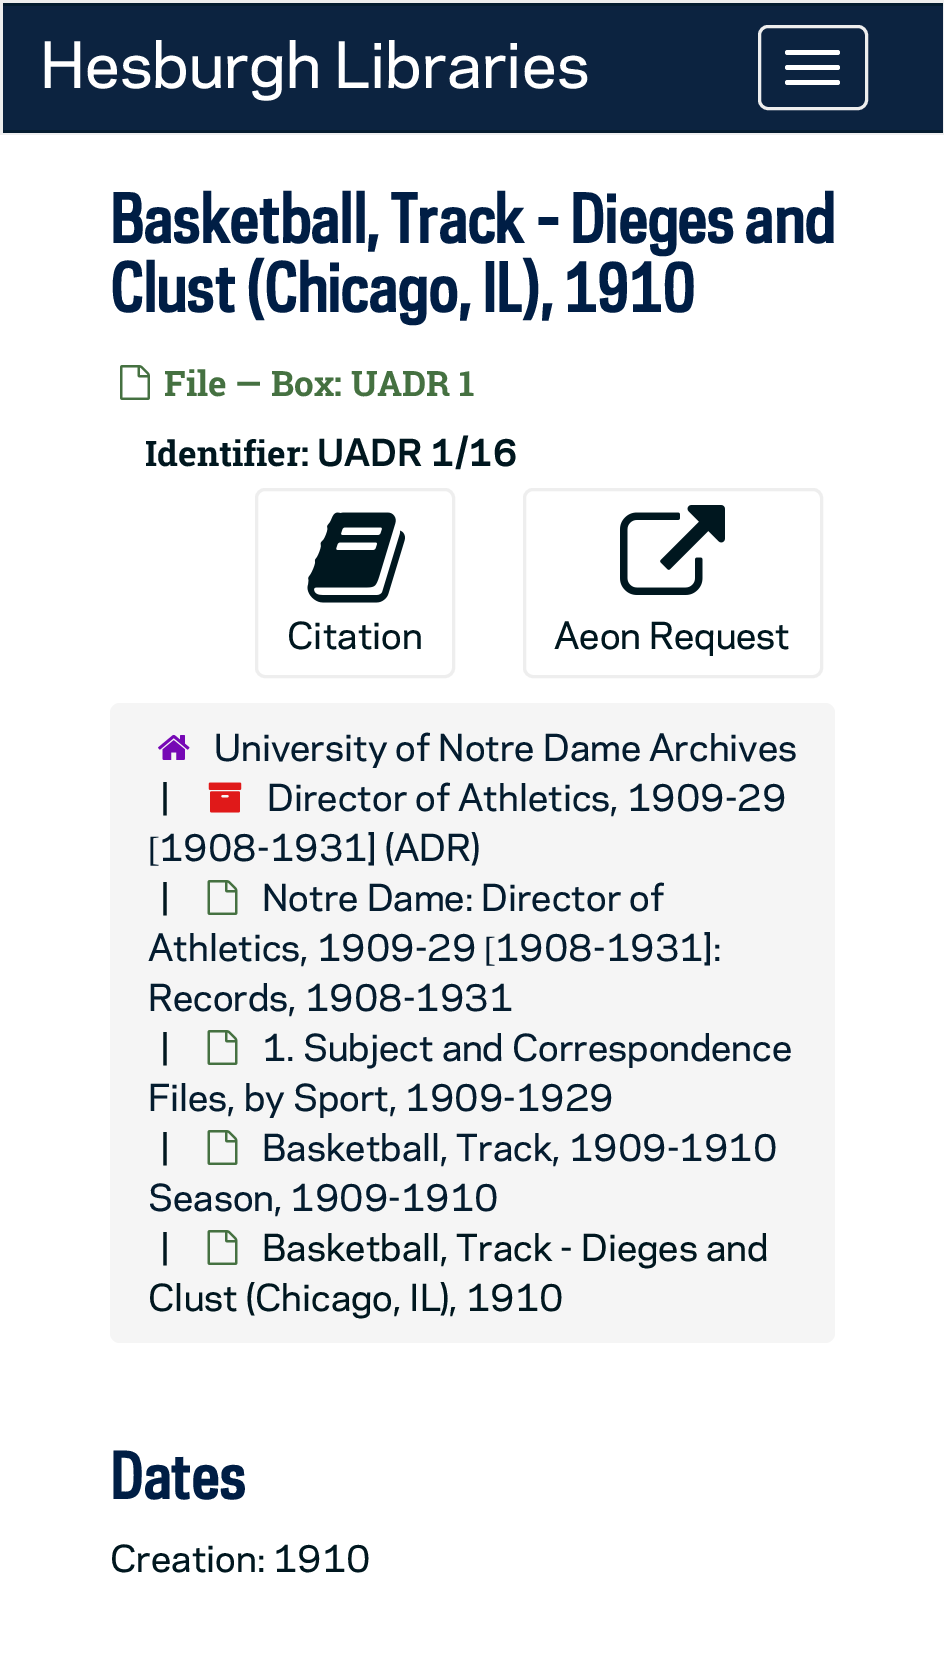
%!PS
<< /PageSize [944 1671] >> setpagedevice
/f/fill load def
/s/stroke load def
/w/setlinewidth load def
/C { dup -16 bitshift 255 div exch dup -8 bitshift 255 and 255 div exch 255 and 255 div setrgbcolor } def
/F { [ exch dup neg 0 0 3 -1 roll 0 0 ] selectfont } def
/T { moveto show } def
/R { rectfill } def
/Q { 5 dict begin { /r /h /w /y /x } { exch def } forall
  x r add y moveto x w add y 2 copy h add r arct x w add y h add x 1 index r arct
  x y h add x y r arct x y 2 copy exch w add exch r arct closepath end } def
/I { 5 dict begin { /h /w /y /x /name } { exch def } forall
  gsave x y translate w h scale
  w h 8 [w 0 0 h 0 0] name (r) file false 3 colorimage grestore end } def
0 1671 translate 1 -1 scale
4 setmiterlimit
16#FFFFFF C
0 0 944 1671 R
16#EEEEEE C
0 0 944 135 R
16#0C2340 C
3 6 940 124 R
16#041C2F C
3 3 940 3 R
3 130 940 3 R
16#EEEEEE C
3 w
759.5 26.5 107 82 8.5 Q s
16#FFFFFF C
785 50 55 5 2.5 Q f
785 65 55 5 2.5 Q f
785 80 55 5 2.5 Q f
/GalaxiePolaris-Regular 60 F
(Hesburgh Libraries) 40 88 T
/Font-Bold 63 F
16#001E45 C
(Basketball, Track - Dieges and) 110 243 T
(Clust \(Chicago, IL\), 1910) 110 312 T
(1.rgb) 120 365 30 35 I
/RobotoSlab-Bold 35 F
16#457141 C
(File — Box: UADR 1) 164 396 T
16#00171F C
(Identifier:) 145 466 T
/GalaxiePolaris-Bold 35 F
(UADR 1/16) 317 466 T
16#EEEEEE C
256.5 489.5 197 187 8.5 Q s
(2.rgb) 307 512 98 91 I
/GalaxiePolaris-Regular 35 F
16#00171F C
(Citation) 287 649 T
16#EEEEEE C
524.5 489.5 297 187 8.5 Q s
(3.rgb) 620 505 105 90 I
16#00171F C
(Aeon Request) 554 649 T
16#F5F5F5 C
110 703 725 640 10 Q f
(4.rgb) 158 734 32 26 I
16#041C2F C
(University of Notre Dame Archives) 214 761 T
16#00171F C
(|) 160 811 T
(5.rgb) 208 782 34 31 I
16#041C2F C
(Director of Athletics, 1909-29) 267 811 T
/LiberationSerif-Regular 35 F
([) 148 861 T
/GalaxiePolaris-Regular 35 F
(1908-1931] \(ADR\)) 159 861 T
16#00171F C
(|) 160 911 T
(6.rgb) 207 880 31 35 I
16#041C2F C
(Notre Dame: Director of) 262 911 T
(Athletics, 1909-29) 148 961 T
/LiberationSerif-Regular 35 F
([) 484 961 T
/GalaxiePolaris-Regular 35 F
(1908-1931]:) 495 961 T
(Records, 1908-1931) 148 1011 T
16#00171F C
(|) 160 1061 T
(6.rgb) 207 1030 31 35 I
16#041C2F C
(1. Subject and Correspondence) 262 1061 T
(Files, by Sport, 1909-1929) 148 1111 T
16#00171F C
(|) 160 1161 T
(6.rgb) 207 1130 31 35 I
16#041C2F C
(Basketball, Track, 1909-1910) 262 1161 T
(Season, 1909-1910) 148 1211 T
16#00171F C
(|) 160 1261 T
(6.rgb) 207 1230 31 35 I
(Basketball, Track - Dieges and) 262 1261 T
(Clust \(Chicago, IL\), 1910) 148 1311 T
/Font-Bold 60 F
16#001E45 C
(Dates) 110 1499 T
/GalaxiePolaris-Regular 35 F
16#00171F C
(Creation: 1910) 110 1572 T
showpage
